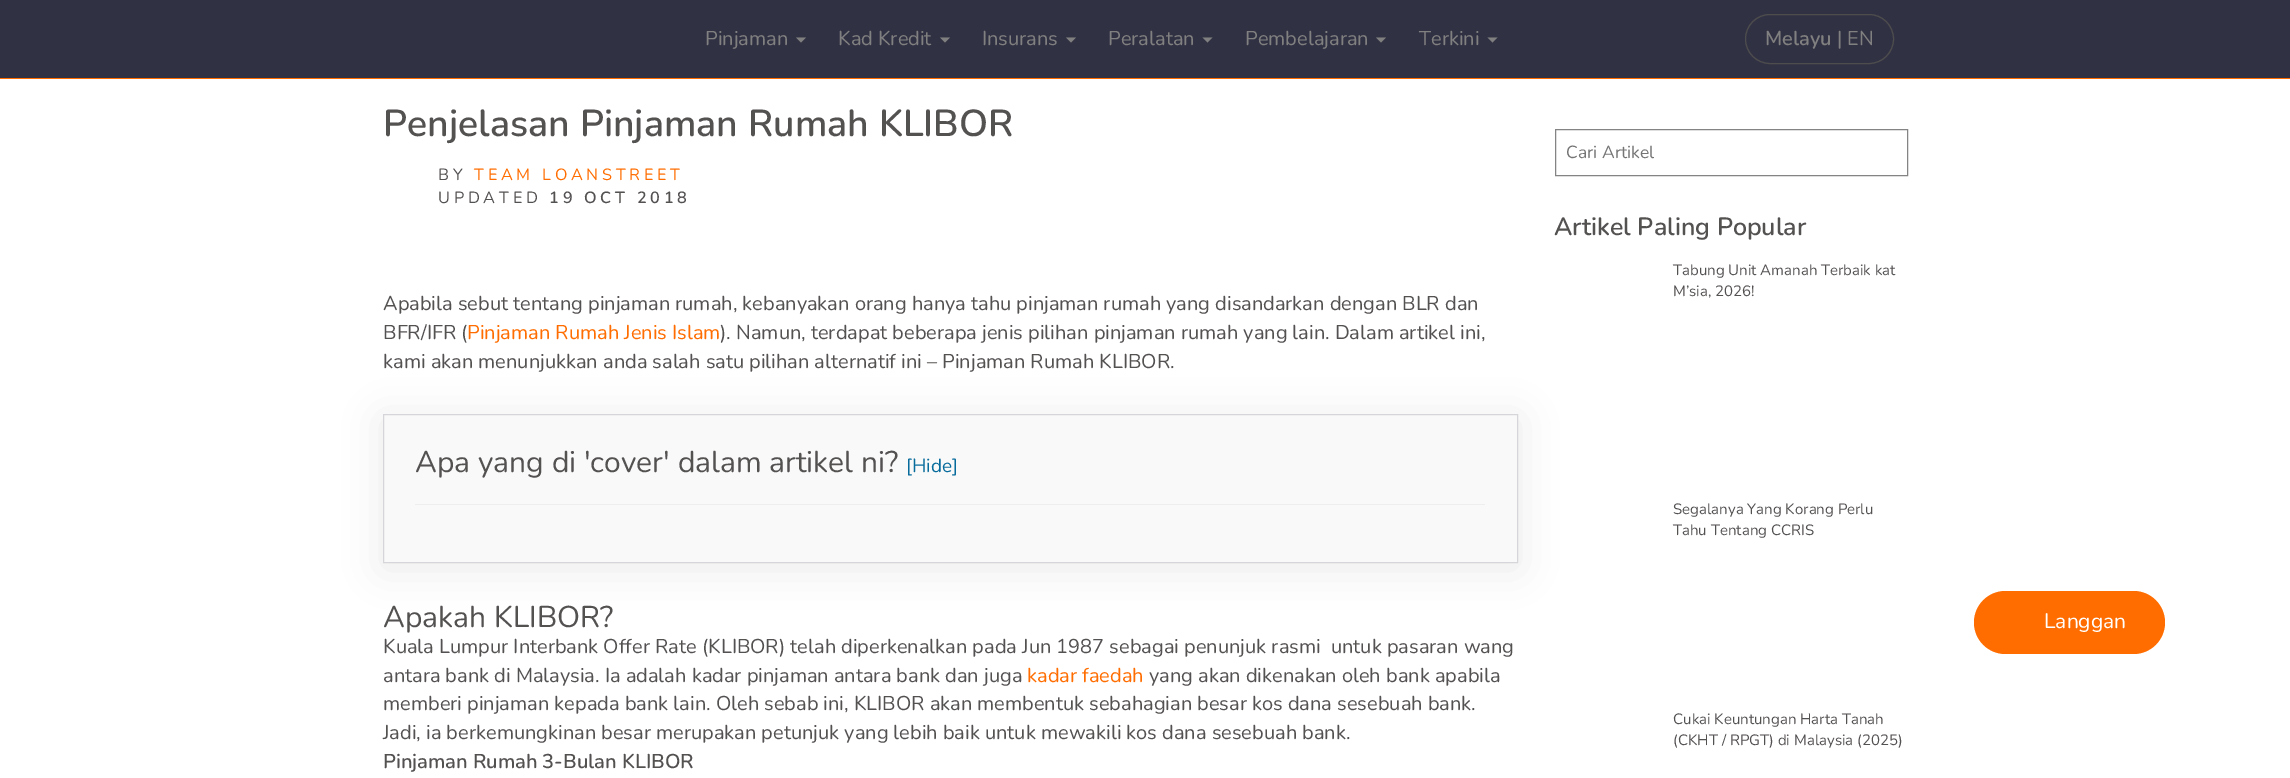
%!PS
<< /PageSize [2290 778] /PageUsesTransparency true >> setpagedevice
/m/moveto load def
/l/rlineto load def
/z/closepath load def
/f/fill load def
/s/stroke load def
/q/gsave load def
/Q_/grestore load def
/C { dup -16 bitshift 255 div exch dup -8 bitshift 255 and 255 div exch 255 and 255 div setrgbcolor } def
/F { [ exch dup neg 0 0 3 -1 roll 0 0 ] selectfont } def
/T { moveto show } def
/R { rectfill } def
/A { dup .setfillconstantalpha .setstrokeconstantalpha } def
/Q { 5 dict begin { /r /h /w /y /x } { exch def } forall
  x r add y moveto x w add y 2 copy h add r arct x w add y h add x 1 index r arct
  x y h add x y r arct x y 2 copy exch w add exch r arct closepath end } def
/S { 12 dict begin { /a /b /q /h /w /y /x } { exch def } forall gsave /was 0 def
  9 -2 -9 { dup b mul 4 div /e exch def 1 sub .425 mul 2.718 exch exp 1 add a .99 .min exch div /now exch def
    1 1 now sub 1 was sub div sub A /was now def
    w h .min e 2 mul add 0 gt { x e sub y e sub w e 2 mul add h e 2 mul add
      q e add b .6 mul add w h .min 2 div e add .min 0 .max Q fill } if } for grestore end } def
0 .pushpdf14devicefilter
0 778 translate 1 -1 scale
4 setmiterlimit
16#FFFFFF C
0 0 2290 778 R
16#313144 C
0 0 2290 78 R
16#FF6D00 C
0 78 2290 1 R
/Nunito-Regular 20 F
16#808080 C
(Pinjaman) 705 45 T
796 37.5 m 10 0 l -5 5 l z f
(Kad Kredit) 838 45 T
940 37.5 m 10 0 l -5 5 l z f
(Insurans) 982 45 T
1066 37.5 m 10 0 l -5 5 l z f
(Peralatan) 1108 45 T
1202.5 37.5 m 10 0 l -5 5 l z f
(Pembelajaran) 1245 45 T
1376 37.5 m 10 0 l -5 5 l z f
(Terkini) 1419 45 T
1487.5 37.5 m 10 0 l -5 5 l z f
16#4D4D4D C
1745.5 14.5 148 49 24.5 Q s
/Nunito-SemiBold 20 F
16#808080 C
(Melayu) 1765 45 T
/Nunito-Regular 20 F
(| EN) 1837 45 T
/Nunito-SemiBold 37.5 F
16#545151 C
(Penjelasan Pinjaman Rumah KLIBOR) 383 136 T
/Nunito-Regular 16.25 F
438 180 m 3.75 0 (BY) ashow
16#FF6D00 C
474 180 m 3.75 0 (TEAM LOANSTREET) ashow
16#545151 C
438 203 m 3.75 0 (UPDATED) ashow
/Nunito-SemiBold 16.25 F
549 203 m 3.75 0 (19 OCT 2018) ashow
/Nunito-Regular 20 F
(Apabila sebut tentang pinjaman rumah, kebanyakan orang hanya tahu pinjaman rumah yang disandarkan dengan BLR dan) 383 310 T
(BFR/IFR \() 383 339 T
16#FF6D00 C
(Pinjaman Rumah Jenis Islam) 467 339 T
16#545151 C
(\). Namun, terdapat beberapa jenis pilihan pinjaman rumah yang lain. Dalam artikel ini,) 720 339 T
16#EAEAEA C
383 419 1135 149 0 19 1 S
16#545151 C
(kami akan menunjukkan anda salah satu pilihan alternatif ini – Pinjaman Rumah KLIBOR.) 383 368 T
16#F9F9F9 C
383.5 414.5 m 1134 0 l 0 148 l -1134 0 l z q f Q_
16#D6D6DA C
s
/Nunito-Regular 30 F
16#545151 C
(Apa yang di 'cover' dalam artikel ni?) 415 472 T
/Nunito-Regular 19 F
16#076B9C C
([Hide]) 906 472 T
16#EEEEEE C
415 504 1070 1 R
/Nunito-Regular 30 F
16#545151 C
(Apakah KLIBOR?) 383 627 T
/Nunito-Regular 20 F
(Kuala Lumpur Interbank Offer Rate \(KLIBOR\) telah diperkenalkan pada Jun 1987 sebagai penunjuk rasmi  untuk pasaran wang) 383 653 T
(antara bank di Malaysia. Ia adalah kadar pinjaman antara bank dan juga) 383 682 T
16#FF6D00 C
(kadar faedah) 1027 682 T
16#545151 C
(yang akan dikenakan oleh bank apabila) 1149 682 T
(memberi pinjaman kepada bank lain. Oleh sebab ini, KLIBOR akan membentuk sebahagian besar kos dana sesebuah bank.) 383 710 T
(Jadi, ia berkemungkinan besar merupakan petunjuk yang lebih baik untuk mewakili kos dana sesebuah bank.) 383 739 T
/Nunito-SemiBold 20 F
(Pinjaman Rumah 3-Bulan KLIBOR) 383 768 T
16#848484 C
1555.5 129.5 352 46 rectstroke
/Nunito-Regular 17.5 F
16#757575 C
(Cari Artikel) 1566 158 T
/Nunito-SemiBold 25 F
16#545151 C
(Artikel Paling Popular) 1554 235 T
/Nunito-Regular 15 F
(Tabung Unit Amanah Terbaik kat) 1673 275 T
(M’sia, 2026!) 1673 296 T
(Segalanya Yang Korang Perlu) 1673 514 T
(Tahu Tentang CCRIS) 1673 535 T
(Cukai Keuntungan Harta Tanah) 1673 724 T
(\(CKHT / RPGT\) di Malaysia \(2025\)) 1673 745 T
16#FF6D00 C
1974 591 191 63 31.5 Q f
/Nunito-Regular 21 F
16#FFFFFF C
(Langgan) 2044 628 T
.poppdf14devicefilter showpage
